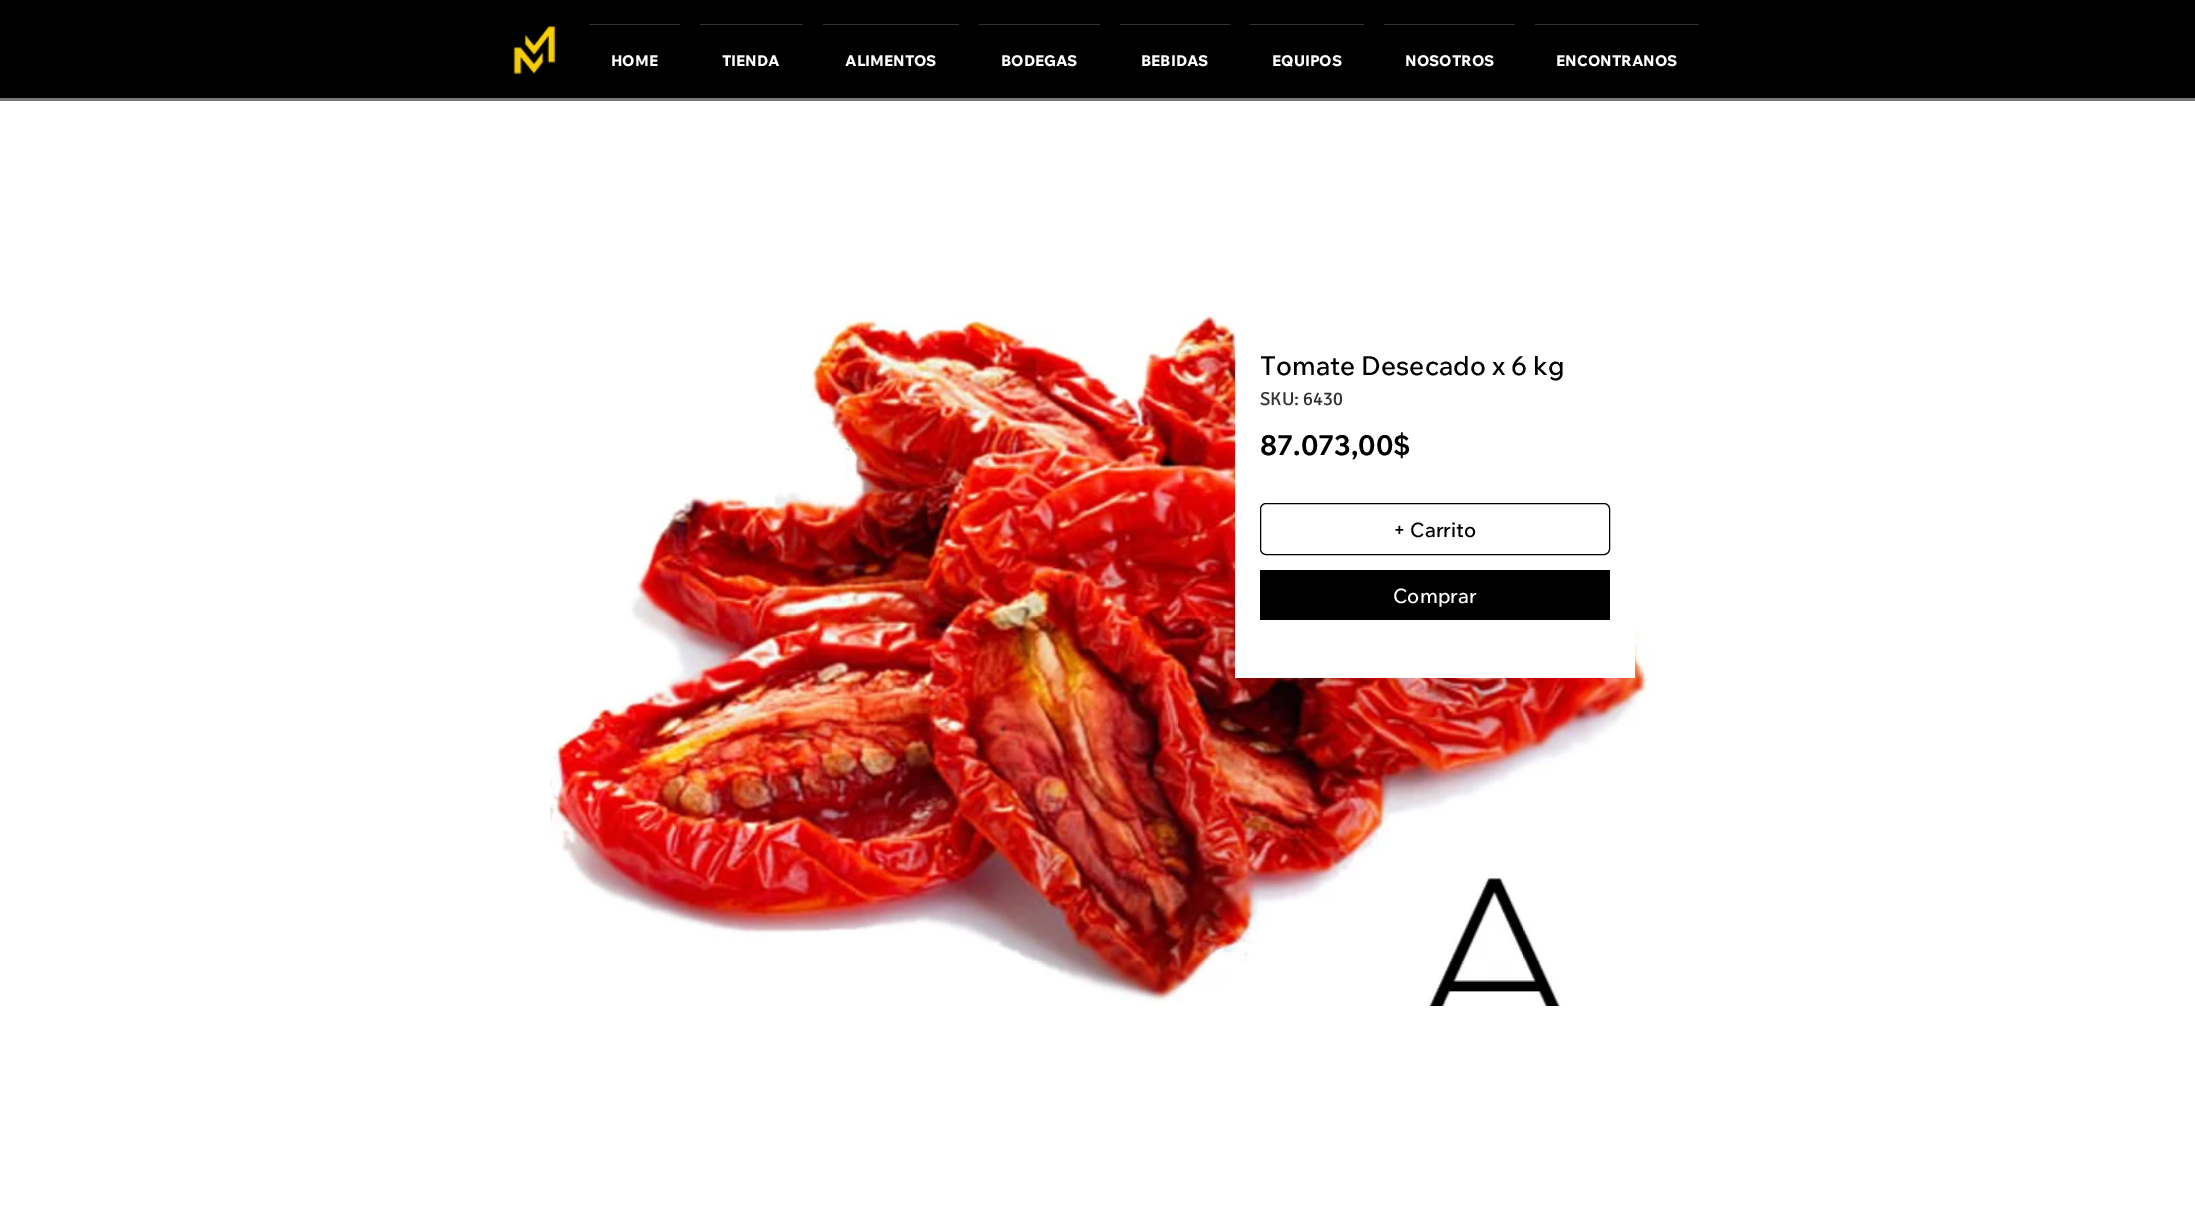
%!PS
<< /PageSize [2195 1227] >> setpagedevice
/s/stroke load def
/C { dup -16 bitshift 255 div exch dup -8 bitshift 255 and 255 div exch 255 and 255 div setrgbcolor } def
/F { [ exch dup neg 0 0 3 -1 roll 0 0 ] selectfont } def
/T { moveto show } def
/R { rectfill } def
/Q { 5 dict begin { /r /h /w /y /x } { exch def } forall
  x r add y moveto x w add y 2 copy h add r arct x w add y h add x 1 index r arct
  x y h add x y r arct x y 2 copy exch w add exch r arct closepath end } def
/I { 5 dict begin { /h /w /y /x /name } { exch def } forall
  gsave x y translate w h scale
  w h 8 [w 0 0 h 0 0] name (r) file false 3 colorimage grestore end } def
0 1227 translate 1 -1 scale
4 setmiterlimit
16#FFFFFF C
0 0 2195 1227 R
16#000000 C
0 0 2195 98 R
16#777777 C
0 98 2195 3 R
(1.rgb) 513 26 43 48 I
16#333333 C
589 24 91 1 R
/WixMadeforText-ExtraBold 15 F
16#FFFFFF C
(HOME) 611 66 T
16#333333 C
700 24 103 1 R
16#FFFFFF C
(TIENDA) 722 66 T
16#333333 C
823 24 136 1 R
16#FFFFFF C
(ALIMENTOS) 845 66 T
16#333333 C
979 24 121 1 R
16#FFFFFF C
(BODEGAS) 1001 66 T
16#333333 C
1120 24 110 1 R
16#FFFFFF C
(BEBIDAS) 1141 66 T
16#333333 C
1250 24 114 1 R
16#FFFFFF C
(EQUIPOS) 1272 66 T
16#333333 C
1384 24 131 1 R
16#FFFFFF C
(NOSOTROS) 1405 66 T
16#333333 C
1535 24 164 1 R
16#FFFFFF C
(ENCONTRANOS) 1556 66 T
(2.rgb) 550 312 1100 694 I
1235 325 400 353 R
/WixMadeforText-Medium 26.25 F
16#000000 C
(Tomate Desecado x 6 kg) 1260 375 T
/Signika-Regular 18.75 F
16#333333 C
(SKU: 6430) 1260 405 T
/WixMadeforText-Bold 27.5 F
16#000000 C
(87.073,00$) 1260 455 T
1260.5 503.5 349 51 5.5 Q s
/WixMadeforText-Medium 20 F
(+ Carrito) 1393 537 T
1260 570 350 50 R
16#FFFFFF C
(Comprar) 1393 603 T
showpage
